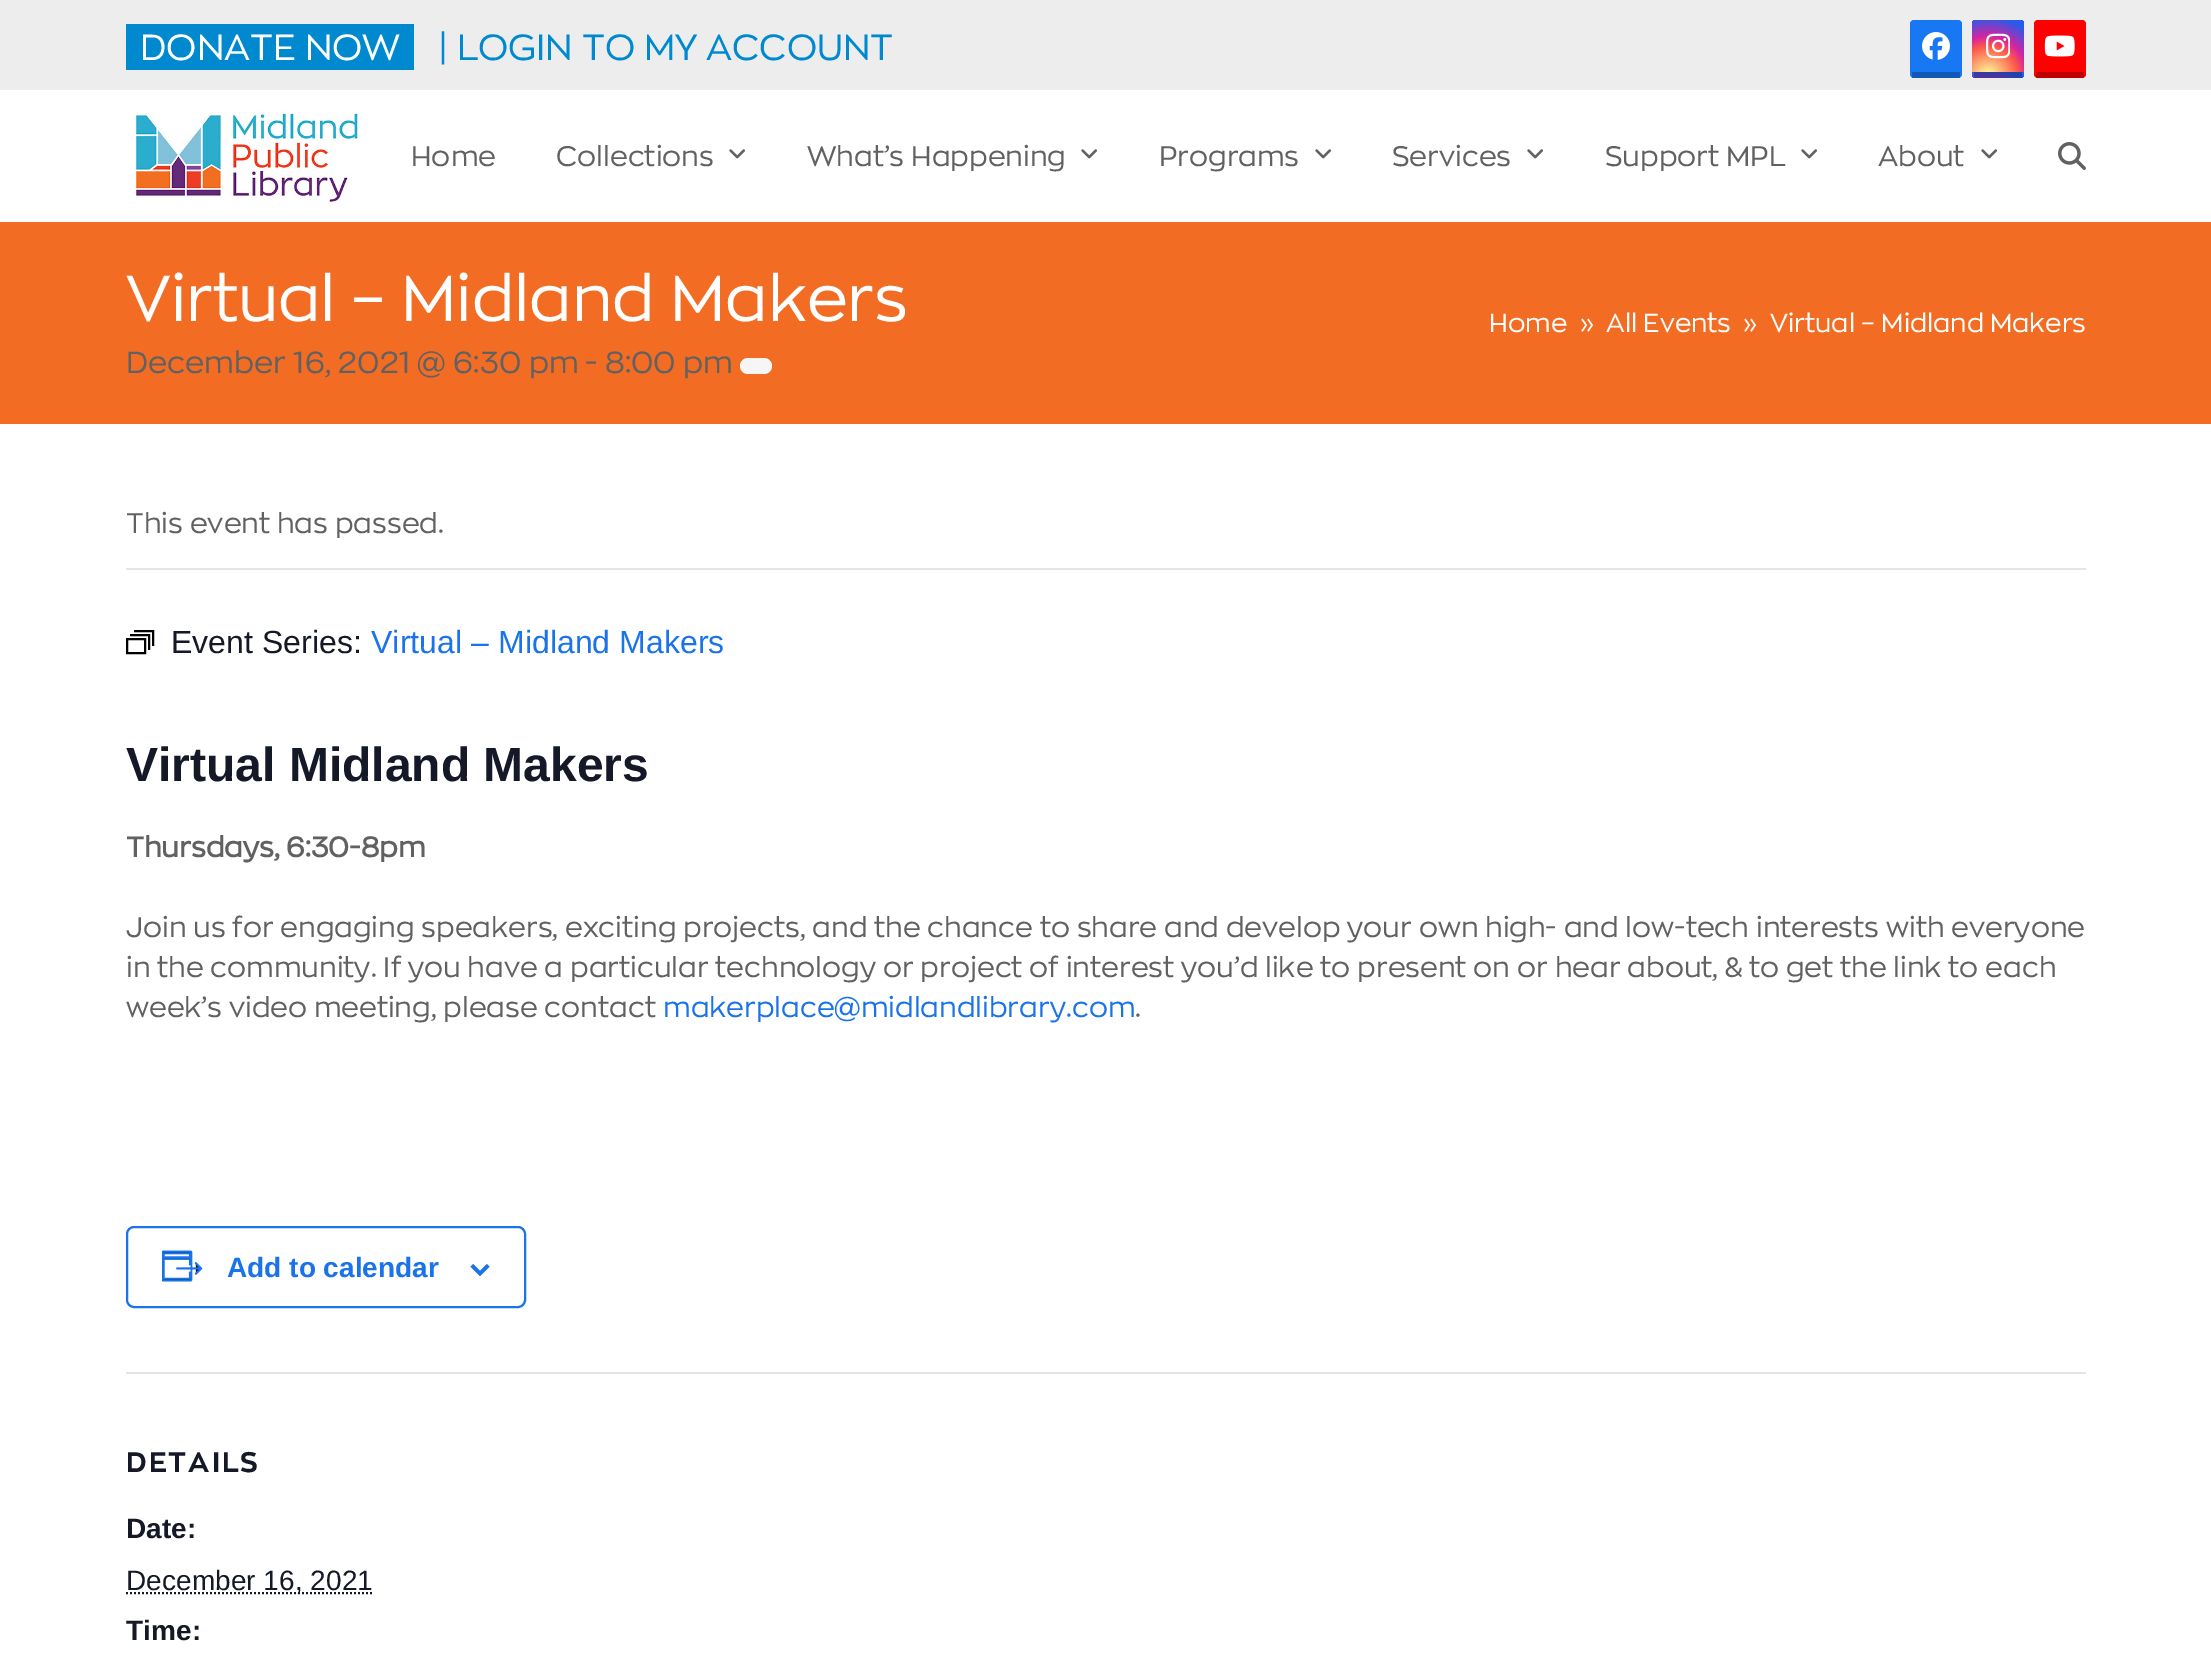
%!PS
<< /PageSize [2211 1658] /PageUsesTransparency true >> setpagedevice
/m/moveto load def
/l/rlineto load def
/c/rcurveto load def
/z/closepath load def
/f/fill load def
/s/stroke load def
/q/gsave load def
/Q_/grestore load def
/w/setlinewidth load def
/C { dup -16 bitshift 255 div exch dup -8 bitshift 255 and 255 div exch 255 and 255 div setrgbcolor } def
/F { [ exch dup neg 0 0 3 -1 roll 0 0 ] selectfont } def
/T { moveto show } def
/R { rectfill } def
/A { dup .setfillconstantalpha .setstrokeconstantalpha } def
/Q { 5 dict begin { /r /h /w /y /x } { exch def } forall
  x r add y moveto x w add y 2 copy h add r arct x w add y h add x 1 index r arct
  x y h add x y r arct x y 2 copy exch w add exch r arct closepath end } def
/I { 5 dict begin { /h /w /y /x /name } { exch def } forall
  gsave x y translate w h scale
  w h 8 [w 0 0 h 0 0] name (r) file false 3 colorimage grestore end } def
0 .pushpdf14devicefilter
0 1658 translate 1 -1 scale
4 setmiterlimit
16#FFFFFF C
0 0 2211 1658 R
16#EDEDED C
0 0 2211 88 R
16#EEEEEE C
0 88 2211 2 R
16#0089CE C
126 24 288 46 R
/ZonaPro-Regular 36 F
16#FFFFFF C
140 60 m .06 0 (DONATE NOW) ashow
16#0089CE C
438 60 m .06 0 (| LOGIN TO MY ACCOUNT) ashow
16#1877F2 C
1910 20 52 58 4 Q f
0.25 A
16#000000 C
1912 72 48 6 R
1 A
(1.rgb) 1922 32 28 28 I
q 1976 20 m 44 0 l 2 0 4 2 4 4 c 0 48 l -52 0 l 0 -48 l 0 -2 2 -4 4 -4 c z clip newpath 1988 76 translate 66 66 scale
<< /ShadingType 3 /ColorSpace /DeviceRGB /Coords [0 0 0 0 0 1] /Extend [true true] /Function << /FunctionType 3 /Domain [0 1] /Functions [<< /FunctionType 2 /Domain [0 1] /C0 [.992 .957 .592] /C1 [.992 .957 .592] /N 1 >> << /FunctionType 2 /Domain [0 1] /C0 [.992 .957 .592] /C1 [.992 .349 .286] /N 1 >> << /FunctionType 2 /Domain [0 1] /C0 [.992 .349 .286] /C1 [.839 .141 .624] /N 1 >> << /FunctionType 2 /Domain [0 1] /C0 [.839 .141 .624] /C1 [.157 .353 .922] /N 1 >> << /FunctionType 2 /Domain [0 1] /C0 [.157 .353 .922] /C1 [.157 .353 .922] /N 1 >>] /Bounds [.05 .45 .6 .9] /Encode [0 1 0 1 0 1 0 1 0 1] >> >> shfill Q_
q 1972 72 m 52 0 l 0 2 l 0 2 -2 4 -4 4 c -44 0 l -2 0 -4 -2 -4 -4 c z clip newpath 1988 128 translate 66 66 scale
<< /ShadingType 3 /ColorSpace /DeviceRGB /Coords [0 0 0 0 0 1] /Extend [true true] /Function << /FunctionType 3 /Domain [0 1] /Functions [<< /FunctionType 2 /Domain [0 1] /C0 [.992 .957 .592] /C1 [.992 .957 .592] /N 1 >> << /FunctionType 2 /Domain [0 1] /C0 [.992 .957 .592] /C1 [.992 .349 .286] /N 1 >> << /FunctionType 2 /Domain [0 1] /C0 [.992 .349 .286] /C1 [.839 .141 .624] /N 1 >> << /FunctionType 2 /Domain [0 1] /C0 [.839 .141 .624] /C1 [.157 .353 .922] /N 1 >> << /FunctionType 2 /Domain [0 1] /C0 [.157 .353 .922] /C1 [.157 .353 .922] /N 1 >>] /Bounds [.05 .45 .6 .9] /Encode [0 1 0 1 0 1 0 1 0 1] >> >> shfill Q_
0.25 A
1974 72 48 6 R
1 A
(2.rgb) 1986 33 24 26 I
16#FF0000 C
2034 20 52 58 4 Q f
0.25 A
16#000000 C
2036 72 48 6 R
1 A
(3.rgb) 2044 35 31 22 I
(4.rgb) 135 111 226 92 I
/ZonaPro-Regular 28 F
16#616161 C
411 166 m .06 0 (Home) ashow
556 166 m .06 0 (Collections) ashow
(5.rgb) 729 149 16 10 I
807 166 m .06 0 (What’s Happening) ashow
(5.rgb) 1081 149 16 10 I
1159 166 m .06 0 (Programs) ashow
(5.rgb) 1315 149 16 10 I
1392 166 m .06 0 (Services) ashow
(5.rgb) 1527 149 16 10 I
1605 166 m .06 0 (Support MPL) ashow
(5.rgb) 1801 149 16 10 I
1878 166 m .06 0 (About) ashow
(5.rgb) 1981 149 16 10 I
(6.rgb) 2058 142 28 28 I
16#F26D23 C
0 222 2211 202 R
/ZonaPro-Regular 64 F
16#FFFFFF C
126 321 m .06 0 (Virtual – Midland Makers) ashow
/ZonaPro-Regular 30.2 F
16#616161 C
126 373 m .06 0 (December 16, 2021 @ 6:30 pm) ashow
585 373 m .06 0 (- 8:00 pm) ashow
16#F7F6F6 C
740 358 32 16 8 Q f
/ZonaPro-Regular 25.8 F
16#FFFFFF C
1489 332 m .06 0 (Home) ashow
1580 332 m .06 0 (») ashow
1606 332 m .06 0 (All Events) ashow
1743 332 m .06 0 (») ashow
1770 332 m .06 0 (Virtual – Midland Makers) ashow
16#E4E4E4 C
126 568 1960 2 R
/ZonaPro-Regular 28 F
16#616161 C
126 533 m .06 0 (This event has passed.) ashow
16#000000 C
2 w
127 639 18 14 rectstroke
130 635 m 19 0 l 0 15 l 134 631 m 19 0 l 0 15 l s
/LiberationSans-Regular 32 F
16#141827 C
171 653 m .06 0 (Event Series:) ashow
16#1A73E8 C
371 653 m .06 0 (Virtual – Midland Makers) ashow
/LiberationSans-Bold 48 F
16#141827 C
(Virtual Midland Makers) 126 781 T
/ZonaPro-Bold 28 F
16#616161 C
126 857 m .06 0 (Thursdays, 6:30-8pm) ashow
/ZonaPro-Regular 28 F
126 937 m .06 0 (Join us for engaging speakers, exciting projects, and the chance to share and develop your own high- and low-tech interests with everyone) ashow
126 977 m .06 0 (in the community. If you have a particular technology or project of interest you’d like to present on or hear about, & to get the link to each) ashow
126 1017 m .06 0 (week’s video meeting, please contact) ashow
16#1A73E8 C
663 1017 m .06 0 (makerplace@midlandlibrary.com) ashow
16#616161 C
1135 1017 m .06 0 (.) ashow
16#1A73E8 C
127 1227 398 80 7 Q s
(7.rgb) 162 1250 41 32 I
/LiberationSans-Bold 28 F
(Add to calendar) 227 1277 T
(8.rgb) 470 1264 20 12 I
16#E4E4E4 C
126 1372 1960 2 R
/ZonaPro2-Bold 28 F
16#141827 C
126 1472 m 2 0 (DETAILS) ashow
/LiberationSans-Bold 28 F
126 1538 m .06 0 (Date:) ashow
[2 2] 0 setdash
126 1593 m 247 0 l s
/LiberationSans-Regular 28 F
126 1590 m .06 0 (December 16, 2021) ashow
/LiberationSans-Bold 28 F
126 1640 m .06 0 (Time:) ashow
.poppdf14devicefilter showpage
